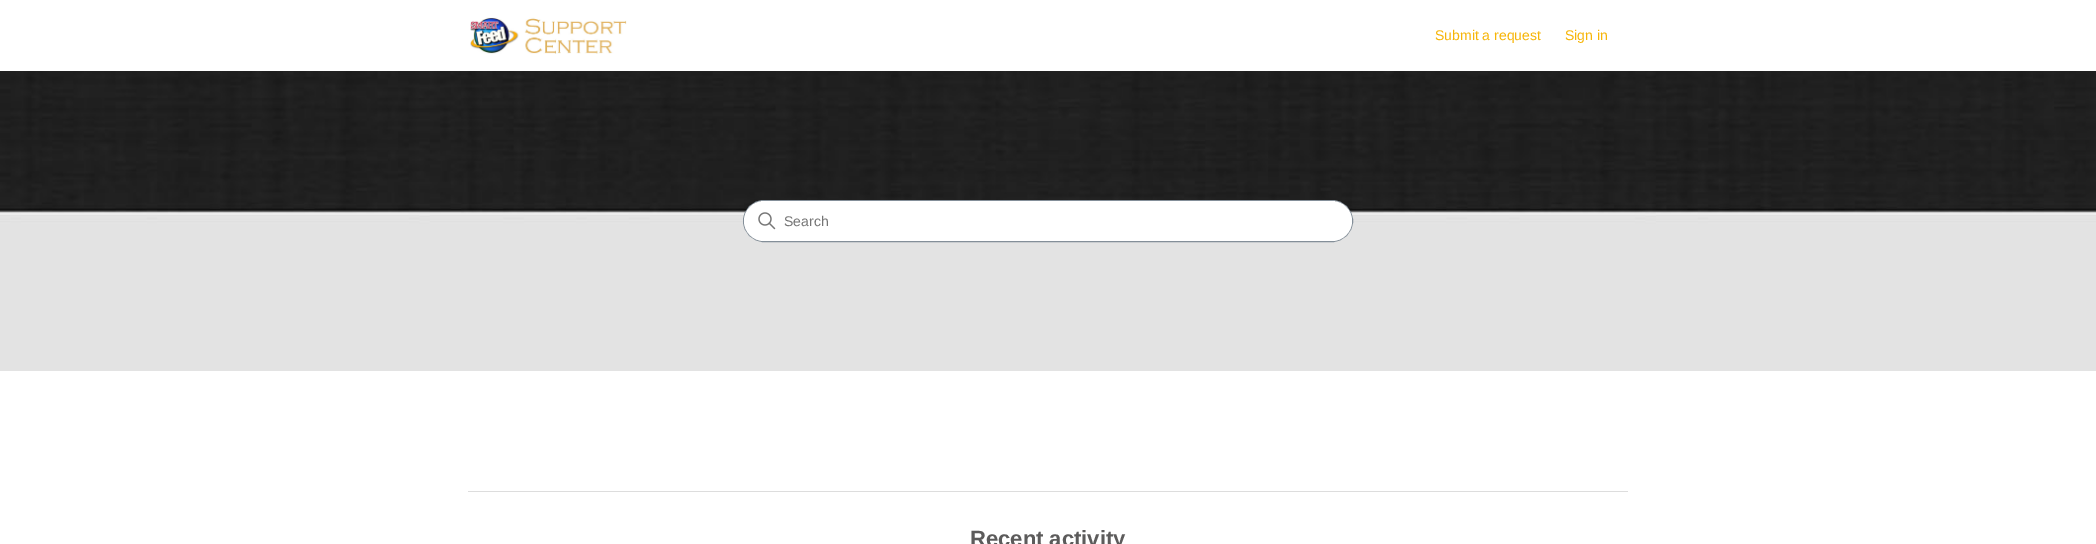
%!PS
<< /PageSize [2096 544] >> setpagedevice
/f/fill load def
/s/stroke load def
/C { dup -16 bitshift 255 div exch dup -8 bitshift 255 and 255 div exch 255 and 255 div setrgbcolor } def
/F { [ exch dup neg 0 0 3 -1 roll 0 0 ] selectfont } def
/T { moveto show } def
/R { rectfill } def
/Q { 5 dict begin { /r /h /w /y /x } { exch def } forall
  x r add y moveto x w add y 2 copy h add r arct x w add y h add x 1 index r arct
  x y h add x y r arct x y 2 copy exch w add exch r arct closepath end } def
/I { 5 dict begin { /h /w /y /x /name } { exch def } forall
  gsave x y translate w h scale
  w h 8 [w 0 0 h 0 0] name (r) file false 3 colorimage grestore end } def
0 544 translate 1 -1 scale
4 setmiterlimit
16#FFFFFF C
0 0 2096 544 R
(1.rgb) 470 17 157 37 I
/LiberationSans-Regular 14 F
16#F7B507 C
(Submit a request) 1435 40 T
(Sign in) 1565 40 T
(2.rgb) 0 71 2096 300 I
16#848F99 C
743.5 200.5 609 41 20.5 Q s
16#FFFFFF C
744 201 608 40 20 Q f
(3.rgb) 758 212 18 18 I
16#757575 C
(Search) 784 226 T
16#DDDDDD C
468 491 1160 1 R
/LiberationSans-Bold 22 F
16#5C5B5B C
(Recent activity) 970 546 T
showpage
